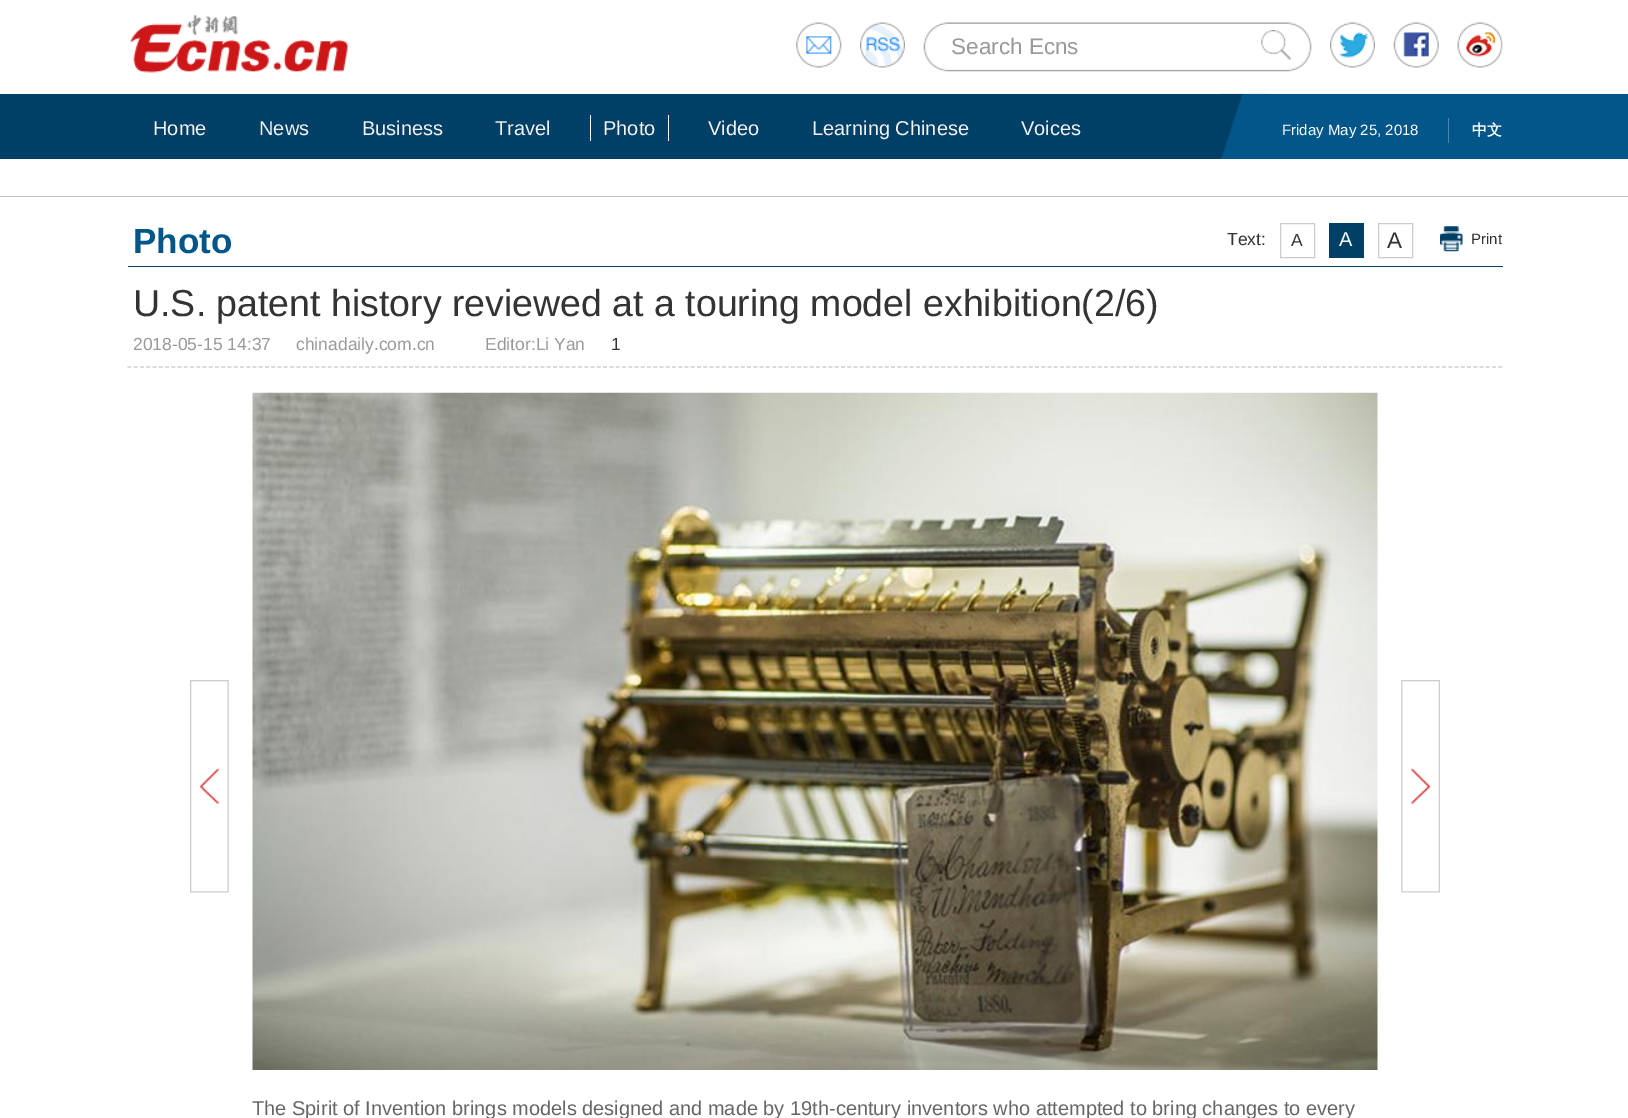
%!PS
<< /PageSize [1628 1118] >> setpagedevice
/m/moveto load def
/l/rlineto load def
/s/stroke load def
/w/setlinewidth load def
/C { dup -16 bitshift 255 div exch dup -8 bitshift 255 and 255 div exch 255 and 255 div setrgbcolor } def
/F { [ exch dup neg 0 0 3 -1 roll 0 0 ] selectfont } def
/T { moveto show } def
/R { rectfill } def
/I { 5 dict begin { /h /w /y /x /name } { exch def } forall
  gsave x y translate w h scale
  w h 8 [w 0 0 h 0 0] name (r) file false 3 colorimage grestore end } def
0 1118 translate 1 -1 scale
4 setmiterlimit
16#FFFFFF C
0 0 1628 1118 R
(1.rgb) 130 14 218 59 I
(2.rgb) 796 22 46 46 I
(3.rgb) 860 22 45 46 I
(4.rgb) 923 22 389 50 I
/LiberationSans-Regular 22.5 F
16#999999 C
(Search Ecns) 951 54 T
(5.rgb) 1261 30 31 30 I
(6.rgb) 1330 22 45 46 I
(7.rgb) 1393 22 46 46 I
(8.rgb) 1457 22 46 46 I
16#003F66 C
0 94 1220 65 R
/LiberationSans-Regular 20 F
16#F2F2F2 C
(Home) 153 135 T
(News) 259 135 T
(Business) 362 135 T
(Travel) 495 135 T
16#FFFFFF C
668 115 1 26 R
590 115 1 26 R
16#F2F2F2 C
(Photo) 603 135 T
(Video) 708 135 T
(Learning Chinese) 812 135 T
(Voices) 1021 135 T
16#035689 C
1220 94 408 65 R
(9.rgb) 1220 93 50 66 I
/LiberationSans-Regular 15 F
16#FFFFFF C
(Friday May 25, 2018) 1282 135 T
16#4A86A7 C
1448 118 1 25 R
/WenQuanYiZenHei-Bold 15 F
16#FFFFFF C
(中文) 1472 135 T
16#BFBFBF C
0 196 1628 1 R
16#003F66 C
128 266 1375 1 R
/LiberationSans-Bold 35 F
16#035689 C
(Photo) 133 253 T
/LiberationSans-Regular 17.5 F
16#333333 C
(Text:) 1227 245 T
16#CCCCCC C
1280.5 223.5 34 34 rectstroke
16#333333 C
(A) 1291 246 T
16#003F66 C
1329 223 35 35 R
/LiberationSans-Regular 20 F
16#FFFFFF C
(A) 1339 246 T
16#CCCCCC C
1378.5 223.5 34 34 rectstroke
/LiberationSans-Regular 22.5 F
16#333333 C
(A) 1387 248 T
(10.rgb) 1440 226 23 26 I
/LiberationSans-Regular 15 F
(Print) 1471 244 T
/LiberationSans-Regular 37.5 F
(U.S. patent history reviewed at a touring model exhibition\(2/6\)) 133 316 T
16#CFCFCF C
1.2 w
[3.75 2.51] 0 setdash
127.5 367 m 1375 0 l s
/LiberationSans-Regular 17.5 F
16#999999 C
(2018-05-15 14:37) 133 350 T
(chinadaily.com.cn) 296 350 T
(Editor:Li Yan) 485 350 T
16#333333 C
(1) 611 350 T
(11.rgb) 190 680 39 213 I
(12.rgb) 1401 680 39 213 I
(13.rgb) 252 392 1126 678 I
/LiberationSans-Regular 20 F
16#666666 C
(The Spirit of Invention brings models designed and made by 19th-century inventors who attempted to bring changes to every) 252 1115 T
showpage
